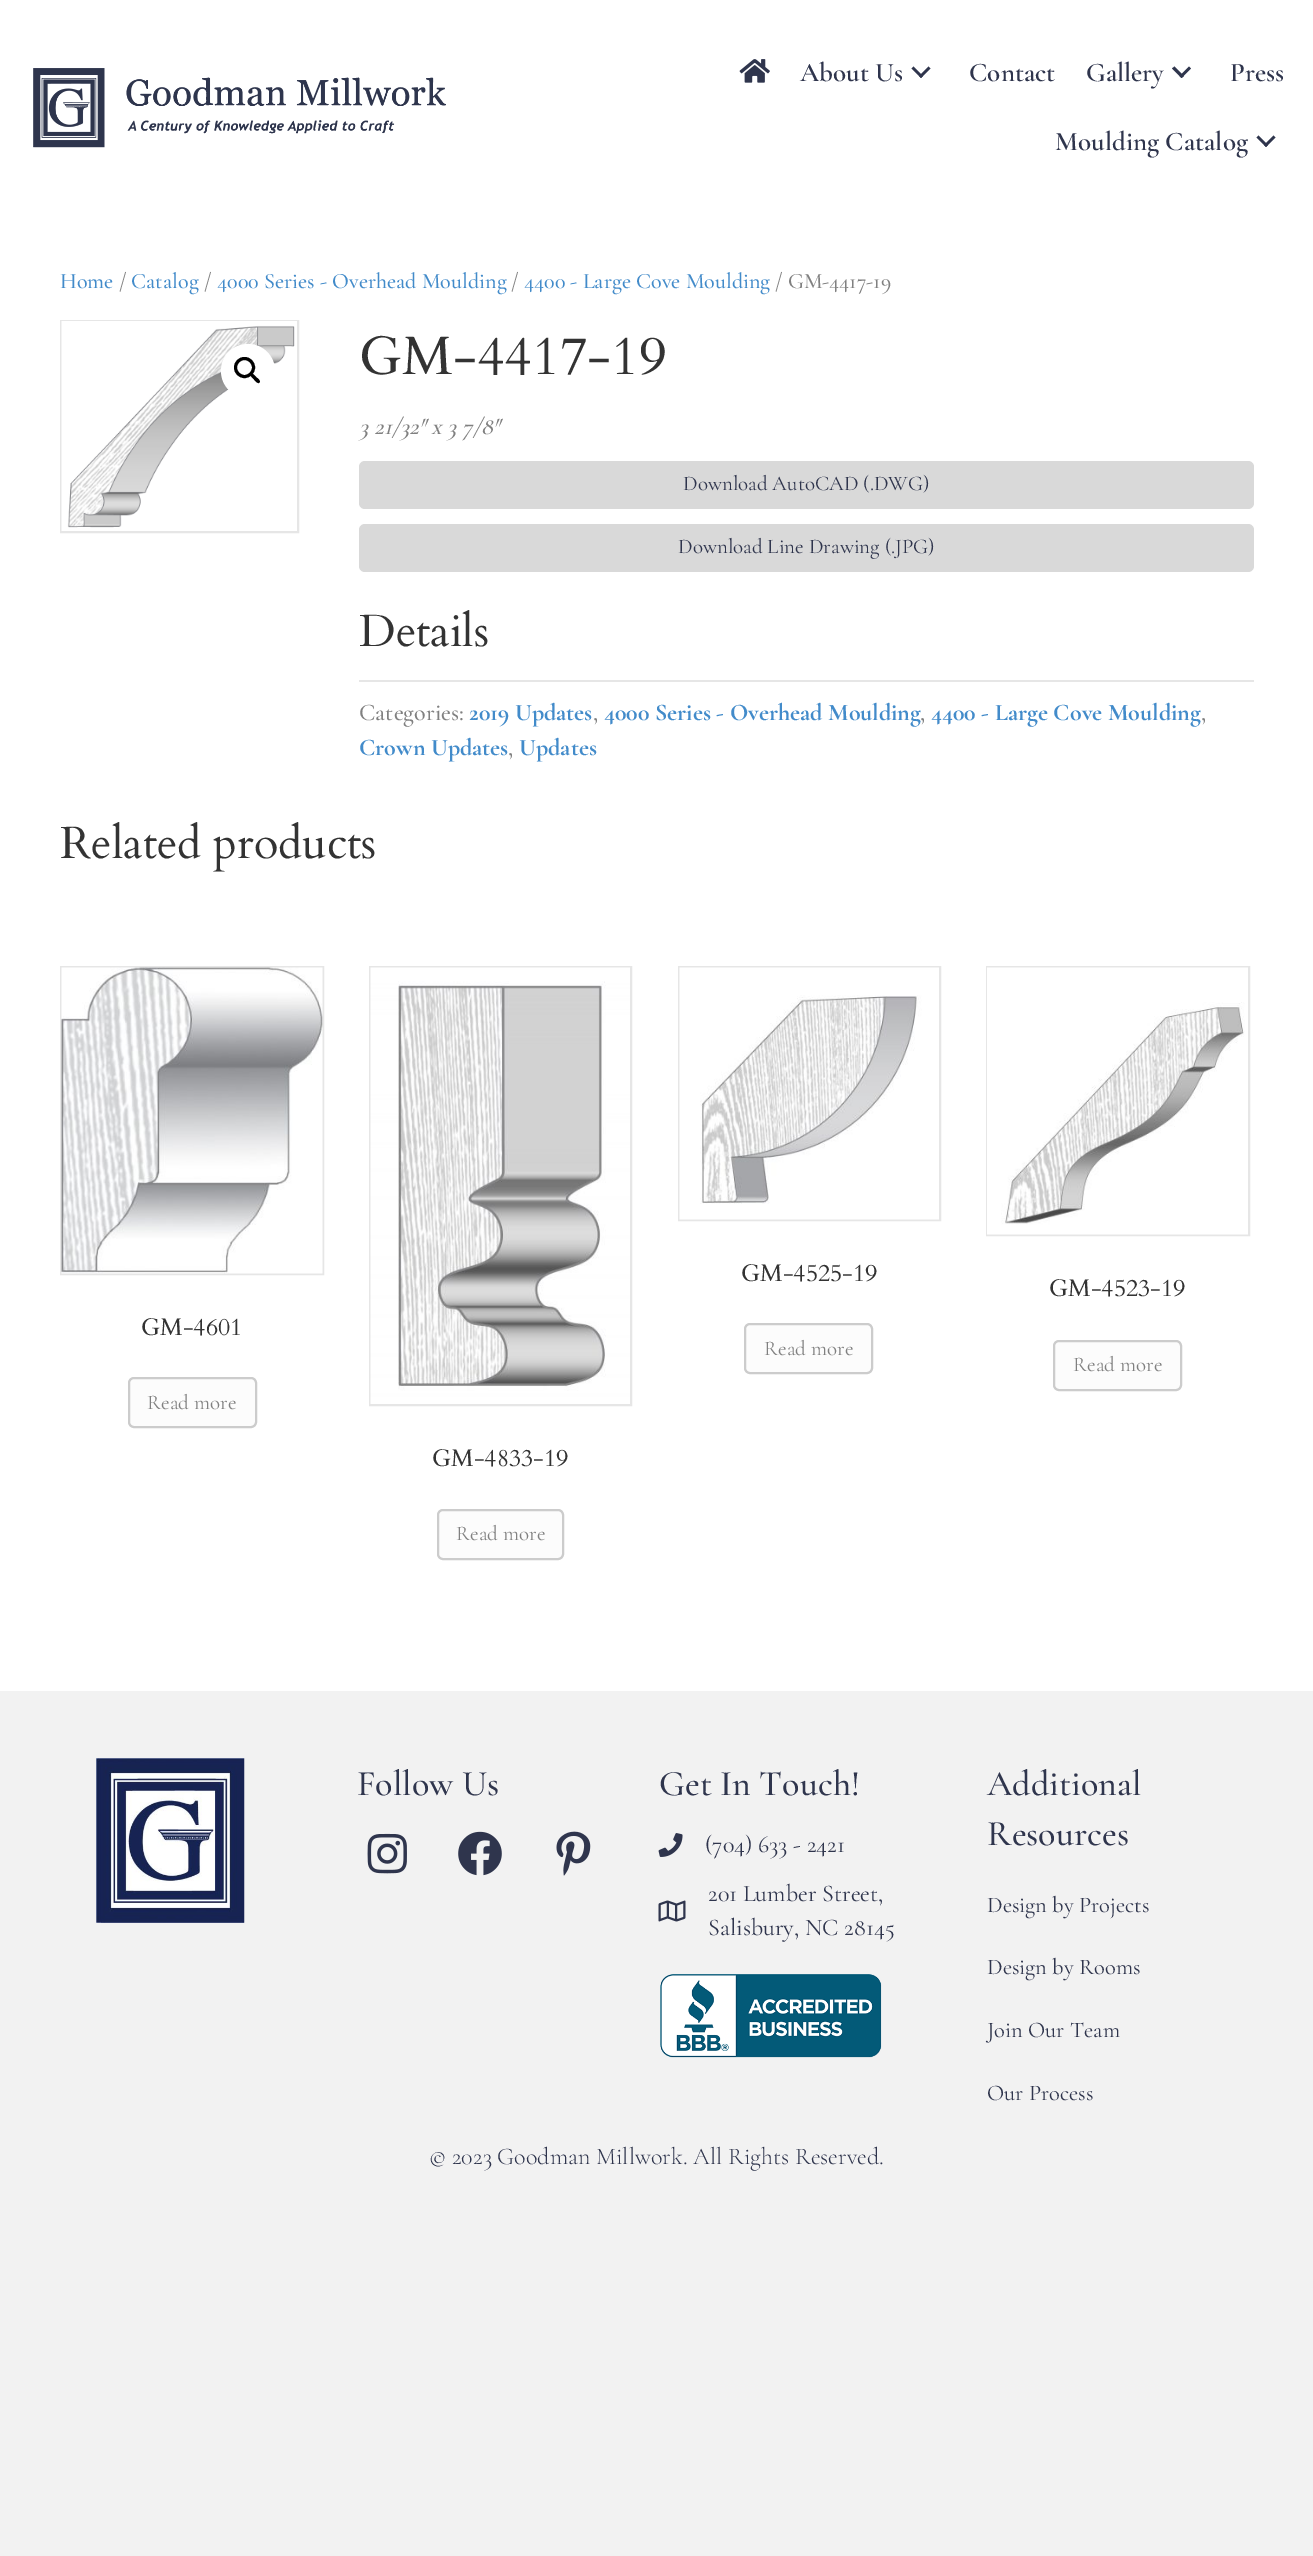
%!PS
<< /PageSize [1313 2556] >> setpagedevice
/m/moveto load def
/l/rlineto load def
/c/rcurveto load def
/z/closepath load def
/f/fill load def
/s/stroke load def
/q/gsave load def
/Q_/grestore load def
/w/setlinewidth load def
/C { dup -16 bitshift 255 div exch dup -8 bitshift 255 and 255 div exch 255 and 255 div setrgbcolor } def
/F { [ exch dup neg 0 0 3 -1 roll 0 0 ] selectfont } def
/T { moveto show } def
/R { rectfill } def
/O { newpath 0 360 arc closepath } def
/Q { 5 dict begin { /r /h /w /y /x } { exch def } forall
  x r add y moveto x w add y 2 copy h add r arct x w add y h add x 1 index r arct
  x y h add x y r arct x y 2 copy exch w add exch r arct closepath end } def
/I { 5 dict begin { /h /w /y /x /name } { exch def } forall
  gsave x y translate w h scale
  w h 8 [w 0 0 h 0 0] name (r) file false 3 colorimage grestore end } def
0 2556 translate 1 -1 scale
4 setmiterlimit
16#F2F2F2 C
0 0 1313 2556 R
16#FFFFFF C
0 0 1313 1691 R
(1.rgb) 33 68 413 80 I
(2.rgb) 739 59 31 24 I
/CormorantGaramond-SemiBold 27 F
16#2F354D C
(About Us) 800 81 T
928.5 66.5 m 2 2 l -9.5 9.5 l -2 -2 l z f
913.5 66.5 m 9.5 9.5 l -2 2 l -9.5 -9.5 l z f
(Contact) 969 81 T
(Gallery) 1086 81 T
1189 66.5 m 2 2 l -9.5 9.5 l -2 -2 l z f
1174.5 66.5 m 9.5 9.5 l -2.5 2 l -9.5 -9.5 l z f
(Press) 1230 81 T
(Moulding Catalog) 1055 150 T
1273.5 135.5 m 2 2 l -9.5 9.5 l -2 -2 l z f
1258.5 135.5 m 9.5 9.5 l -2 2 l -9.5 -9.5 l z f
/CormorantGaramond-Medium 22.1 F
16#428BCA C
(Home) 60 288 T
16#808080 C
(/) 119 288 T
16#428BCA C
(Catalog) 131 288 T
16#808080 C
(/) 204 288 T
16#428BCA C
(4000 Series - Overhead Moulding) 217 288 T
16#808080 C
(/) 511 288 T
16#428BCA C
(4400 - Large Cove Moulding) 524 288 T
16#808080 C
(/ GM-4417-19) 775 288 T
16#E6E6E6 C
2 w
61 321 237 211 rectstroke
(3.rgb) 61 321 236 210 I
16#FFFFFF C
248 371 27 O f
16#000000 C
3 w
244.5 367.5 9 O s
251 374 m 1.5 -1.5 4.5 2.5 5.5 3.5 c 1 .5 4.5 3.5 3 5 c -1.5 2 -4.5 -2 -5.5 -3 c -.5 -1 -4.5 -3.5 -3 -5.5 c z f
/Cardo-Regular 54 F
16#333333 C
(GM-4417-19) 359 374 T
/CormorantGaramond-MediumItalic 24 F
16#808080 C
(3 21/32″ x 3 7/8″) 359 434 T
16#D9D9D9 C
359 461 895 48 6 Q f
/CormorantGaramond-Regular 21 F
16#2F354D C
(Download AutoCAD \(.DWG\)) 683 490 T
16#D9D9D9 C
359 524 895 48 6 Q f
16#2F354D C
(Download Line Drawing \(.JPG\)) 678 553 T
/Cardo-Regular 45 F
16#333333 C
(Details) 359 646 T
16#E6E6E6 C
359 680 895 2 R
/CormorantGaramond-Medium 24 F
16#808080 C
(Categories:) 359 720 T
/CormorantGaramond-Bold 24 F
16#428BCA C
(2019 Updates) 469 720 T
/CormorantGaramond-Medium 24 F
16#808080 C
(,) 593 720 T
/CormorantGaramond-Bold 24 F
16#428BCA C
(4000 Series - Overhead Moulding) 604 720 T
/CormorantGaramond-Medium 24 F
16#808080 C
(,) 920 720 T
/CormorantGaramond-Bold 24 F
16#428BCA C
(4400 - Large Cove Moulding) 931 720 T
/CormorantGaramond-Medium 24 F
16#808080 C
(,) 1201 720 T
/CormorantGaramond-Bold 24 F
16#428BCA C
(Crown Updates) 359 755 T
/CormorantGaramond-Medium 24 F
16#808080 C
(,) 508 755 T
/CormorantGaramond-Bold 24 F
16#428BCA C
(Updates) 519 755 T
/Cardo-Regular 45 F
16#333333 C
(Related products) 60 858 T
16#E6E6E6 C
2 w
61 967 262 307 rectstroke
(4.rgb) 61 967 262 307 I
/Cardo-Regular 24 F
16#333333 C
(GM-4601) 141 1335 T
16#FCFCFC C
129 1378 127 49 5 Q q f Q_
16#CCCCCC C
s
/CormorantGaramond-Regular 21 F
16#808080 C
(Read more) 147 1409 T
16#E6E6E6 C
679 967 261 253 rectstroke
(5.rgb) 679 967 260 253 I
/Cardo-Regular 24 F
16#333333 C
(GM-4525-19) 741 1281 T
16#FCFCFC C
745 1324 127 49 5 Q q f Q_
16#CCCCCC C
s
/CormorantGaramond-Regular 21 F
16#808080 C
(Read more) 764 1355 T
16#E6E6E6 C
987 967 262 268 rectstroke
(6.rgb) 987 967 261 268 I
/Cardo-Regular 24 F
16#333333 C
(GM-4523-19) 1049 1296 T
16#FCFCFC C
1054 1341 127 49 5 Q q f Q_
16#CCCCCC C
s
/CormorantGaramond-Regular 21 F
16#808080 C
(Read more) 1073 1371 T
16#E6E6E6 C
370 967 261 438 rectstroke
(7.rgb) 370 967 260 437 I
/Cardo-Regular 24 F
16#333333 C
(GM-4833-19) 432 1466 T
16#FCFCFC C
438 1510 125 49 5 Q q f Q_
16#CCCCCC C
s
/CormorantGaramond-Regular 21 F
16#808080 C
(Read more) 456 1540 T
(8.rgb) 96 1758 149 165 I
/CormorantGaramond-Medium 36 F
16#2F354D C
(Follow Us) 357 1795 T
(9.rgb) 367 1833 40 41 I
(10.rgb) 458 1831 44 45 I
(11.rgb) 556 1831 35 45 I
(Get In Touch!) 659 1795 T
(12.rgb) 658 1833 25 24 I
/CormorantGaramond-Regular 24 F
(\(704\) 633 - 2421) 705 1852 T
(13.rgb) 658 1900 28 22 I
(201 Lumber Street,) 708 1901 T
(Salisbury, NC 28145) 708 1935 T
(14.rgb) 660 1974 222 84 I
/CormorantGaramond-Medium 36 F
(Additional) 987 1795 T
(Resources) 987 1845 T
/CormorantGaramond-Regular 22.5 F
(Design by Projects) 987 1912 T
(Design by Rooms) 987 1974 T
(Join Our Team) 987 2037 T
(Our Process) 987 2100 T
/CormorantGaramond-Light 24 F
(© 2023 Goodman Millwork. All Rights Reserved.) 429 2164 T
showpage
